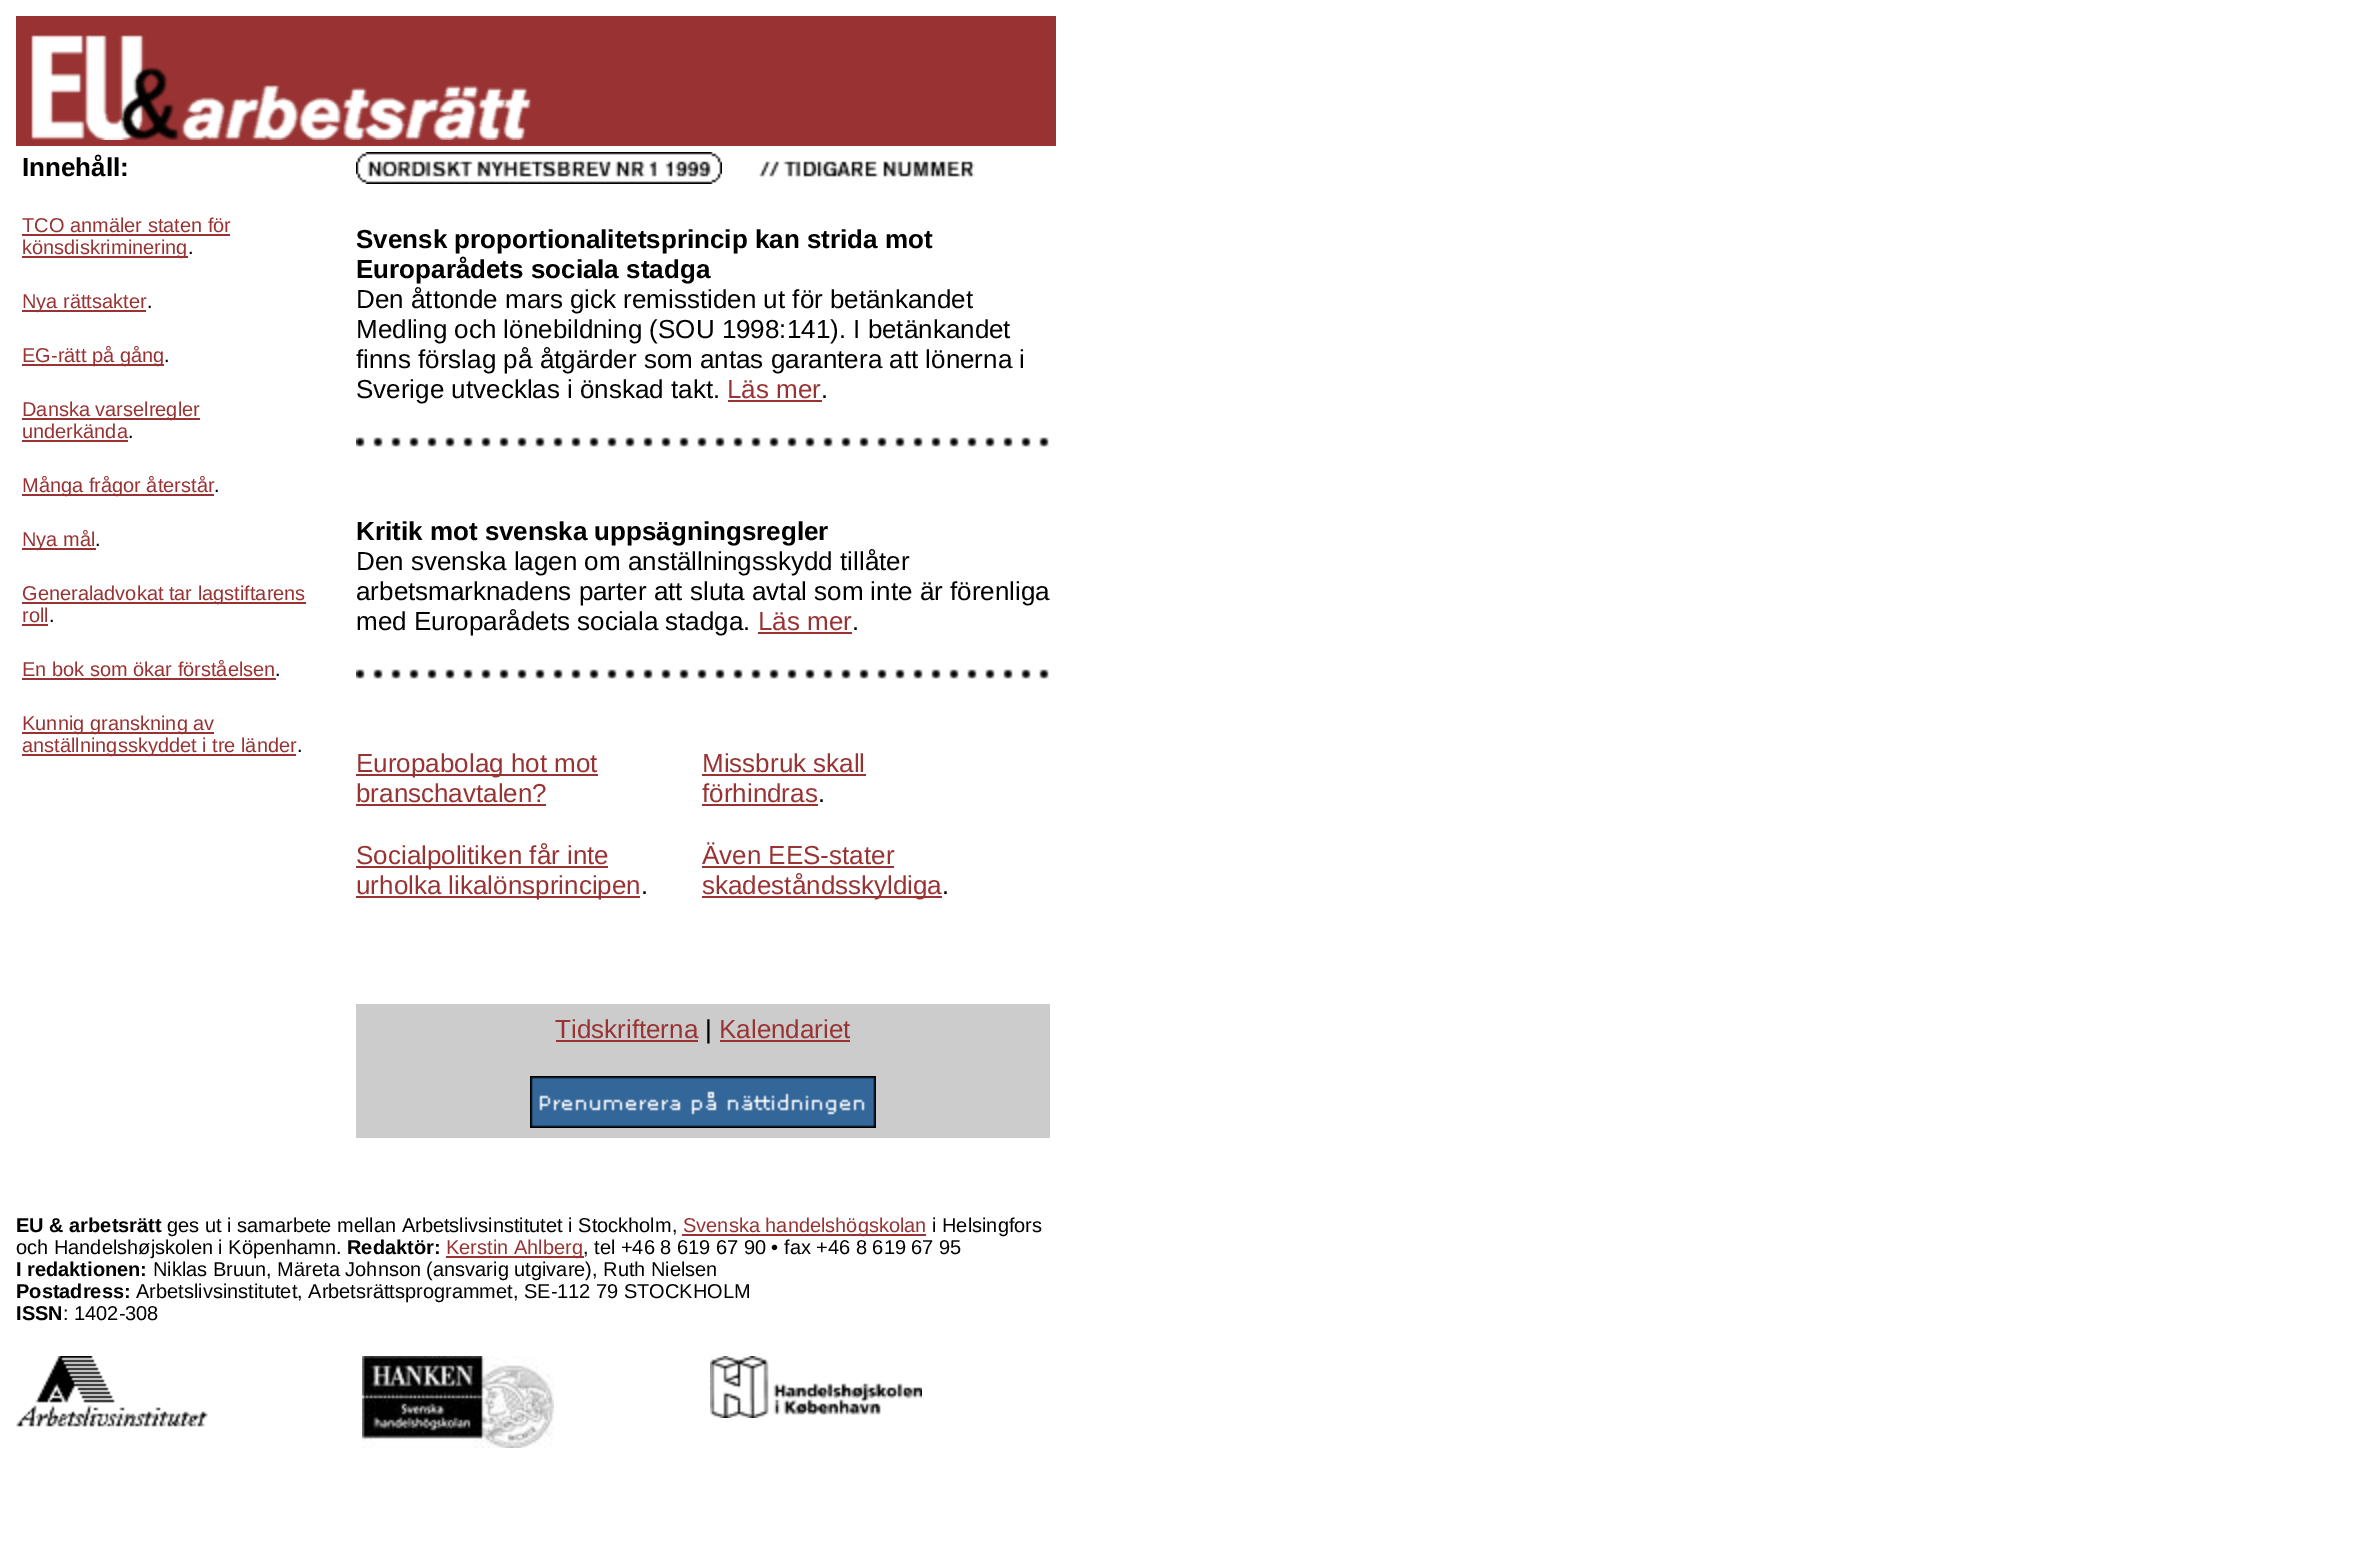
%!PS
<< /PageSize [2373 1554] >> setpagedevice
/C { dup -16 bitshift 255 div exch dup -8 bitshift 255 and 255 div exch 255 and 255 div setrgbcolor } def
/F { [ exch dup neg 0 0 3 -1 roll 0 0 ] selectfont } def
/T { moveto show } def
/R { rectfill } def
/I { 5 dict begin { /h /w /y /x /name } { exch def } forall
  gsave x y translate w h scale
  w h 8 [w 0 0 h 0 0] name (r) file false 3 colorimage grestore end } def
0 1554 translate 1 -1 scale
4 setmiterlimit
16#FFFFFF C
0 0 2373 1554 R
16#993333 C
16 16 1040 130 R
(1.rgb) 31 35 500 105 I
/LiberationSans-Bold 26 F
16#000000 C
(Innehåll:) 22 176 T
/LiberationSans-Regular 20 F
16#993333 C
(TCO anmäler staten för) 22 232 T
22 234 208 2 R
22 256 166 2 R
(könsdiskriminering) 22 254 T
16#000000 C
(.) 188 254 T
16#993333 C
22 310 124 2 R
(Nya rättsakter) 22 308 T
16#000000 C
(.) 147 308 T
16#993333 C
22 364 142 2 R
(EG-rätt på gång) 22 362 T
16#000000 C
(.) 164 362 T
16#993333 C
22 418 178 2 R
(Danska varselregler) 22 416 T
(underkända) 22 438 T
16#000000 C
(.) 128 438 T
16#993333 C
22 440 106 2 R
22 494 192 2 R
(Många frågor återstår) 22 492 T
16#000000 C
(.) 214 492 T
16#993333 C
22 548 74 2 R
(Nya mål) 22 546 T
16#000000 C
(.) 95 546 T
16#993333 C
22 602 284 2 R
(Generaladvokat tar lagstiftarens) 22 600 T
(roll) 22 622 T
16#000000 C
(.) 49 622 T
16#993333 C
22 624 26 2 R
(En bok som ökar förståelsen) 22 676 T
16#000000 C
(.) 275 676 T
16#993333 C
22 678 254 2 R
22 732 192 2 R
(Kunnig granskning av) 22 730 T
22 754 274 2 R
(anställningsskyddet i tre länder) 22 752 T
16#000000 C
(.) 297 752 T
(2.rgb) 356 152 366 32 I
(3.rgb) 759 161 216 16 I
/LiberationSans-Bold 26 F
(Svensk proportionalitetsprincip kan strida mot) 356 248 T
(Europarådets sociala stadga) 356 278 T
/LiberationSans-Regular 26 F
(Den åttonde mars gick remisstiden ut för betänkandet) 356 308 T
(Medling och lönebildning \(SOU 1998:141\). I betänkandet) 356 338 T
(finns förslag på åtgärder som antas garantera att lönerna i) 356 368 T
(Sverige utvecklas i önskad takt.) 356 398 T
16#993333 C
(Läs mer) 727 398 T
16#000000 C
(.) 821 398 T
16#993333 C
728 400 94 2 R
(4.rgb) 356 437 693 10 I
/LiberationSans-Bold 26 F
16#000000 C
(Kritik mot svenska uppsägningsregler) 356 540 T
/LiberationSans-Regular 26 F
(Den svenska lagen om anställningsskydd tillåter) 356 570 T
(arbetsmarknadens parter att sluta avtal som inte är förenliga) 356 600 T
(med Europarådets sociala stadga.) 356 630 T
16#993333 C
(Läs mer) 758 630 T
16#000000 C
(.) 852 630 T
16#993333 C
758 632 94 2 R
(4.rgb) 356 669 693 10 I
356 774 242 2 R
(Europabolag hot mot) 356 772 T
(branschavtalen?) 356 802 T
356 804 190 2 R
356 866 252 2 R
(Socialpolitiken får inte) 356 864 T
356 896 284 2 R
(urholka likalönsprincipen) 356 894 T
16#000000 C
(.) 641 894 T
16#993333 C
(Missbruk skall) 702 772 T
702 774 164 2 R
(förhindras) 702 802 T
16#000000 C
(.) 818 802 T
16#993333 C
702 804 116 2 R
(Även EES-stater) 702 864 T
702 866 192 2 R
702 896 240 2 R
(skadeståndsskyldiga) 702 894 T
16#000000 C
(.) 942 894 T
16#CCCCCC C
356 1004 694 134 R
16#993333 C
(Tidskrifterna) 555 1038 T
556 1040 142 2 R
16#000000 C
(|) 705 1038 T
16#993333 C
(Kalendariet) 719 1038 T
720 1040 130 2 R
(5.rgb) 530 1076 346 52 I
/LiberationSans-Bold 20 F
16#000000 C
(EU & arbetsrätt) 16 1232 T
/LiberationSans-Regular 20 F
(ges ut i samarbete mellan Arbetslivsinstitutet i Stockholm,) 167 1232 T
16#993333 C
682 1234 244 2 R
(Svenska handelshögskolan) 683 1232 T
16#000000 C
(i Helsingfors) 932 1232 T
(och Handelshøjskolen i Köpenhamn.) 16 1254 T
/LiberationSans-Bold 20 F
(Redaktör:) 347 1254 T
16#993333 C
446 1256 138 2 R
/LiberationSans-Regular 20 F
(Kerstin Ahlberg) 446 1254 T
16#000000 C
(, tel +46 8 619 67 90 • fax +46 8 619 67 95) 583 1254 T
/LiberationSans-Bold 20 F
(I redaktionen:) 16 1276 T
/LiberationSans-Regular 20 F
(Niklas Bruun, Märeta Johnson \(ansvarig utgivare\), Ruth Nielsen) 153 1276 T
/LiberationSans-Bold 20 F
(Postadress:) 16 1298 T
/LiberationSans-Regular 20 F
(Arbetslivsinstitutet, Arbetsrättsprogrammet, SE-112 79 STOCKHOLM) 136 1298 T
/LiberationSans-Bold 20 F
(ISSN) 16 1320 T
/LiberationSans-Regular 20 F
(: 1402-308) 63 1320 T
(6.rgb) 16 1356 192 71 I
(7.rgb) 362 1356 192 92 I
(8.rgb) 710 1356 212 62 I
showpage
